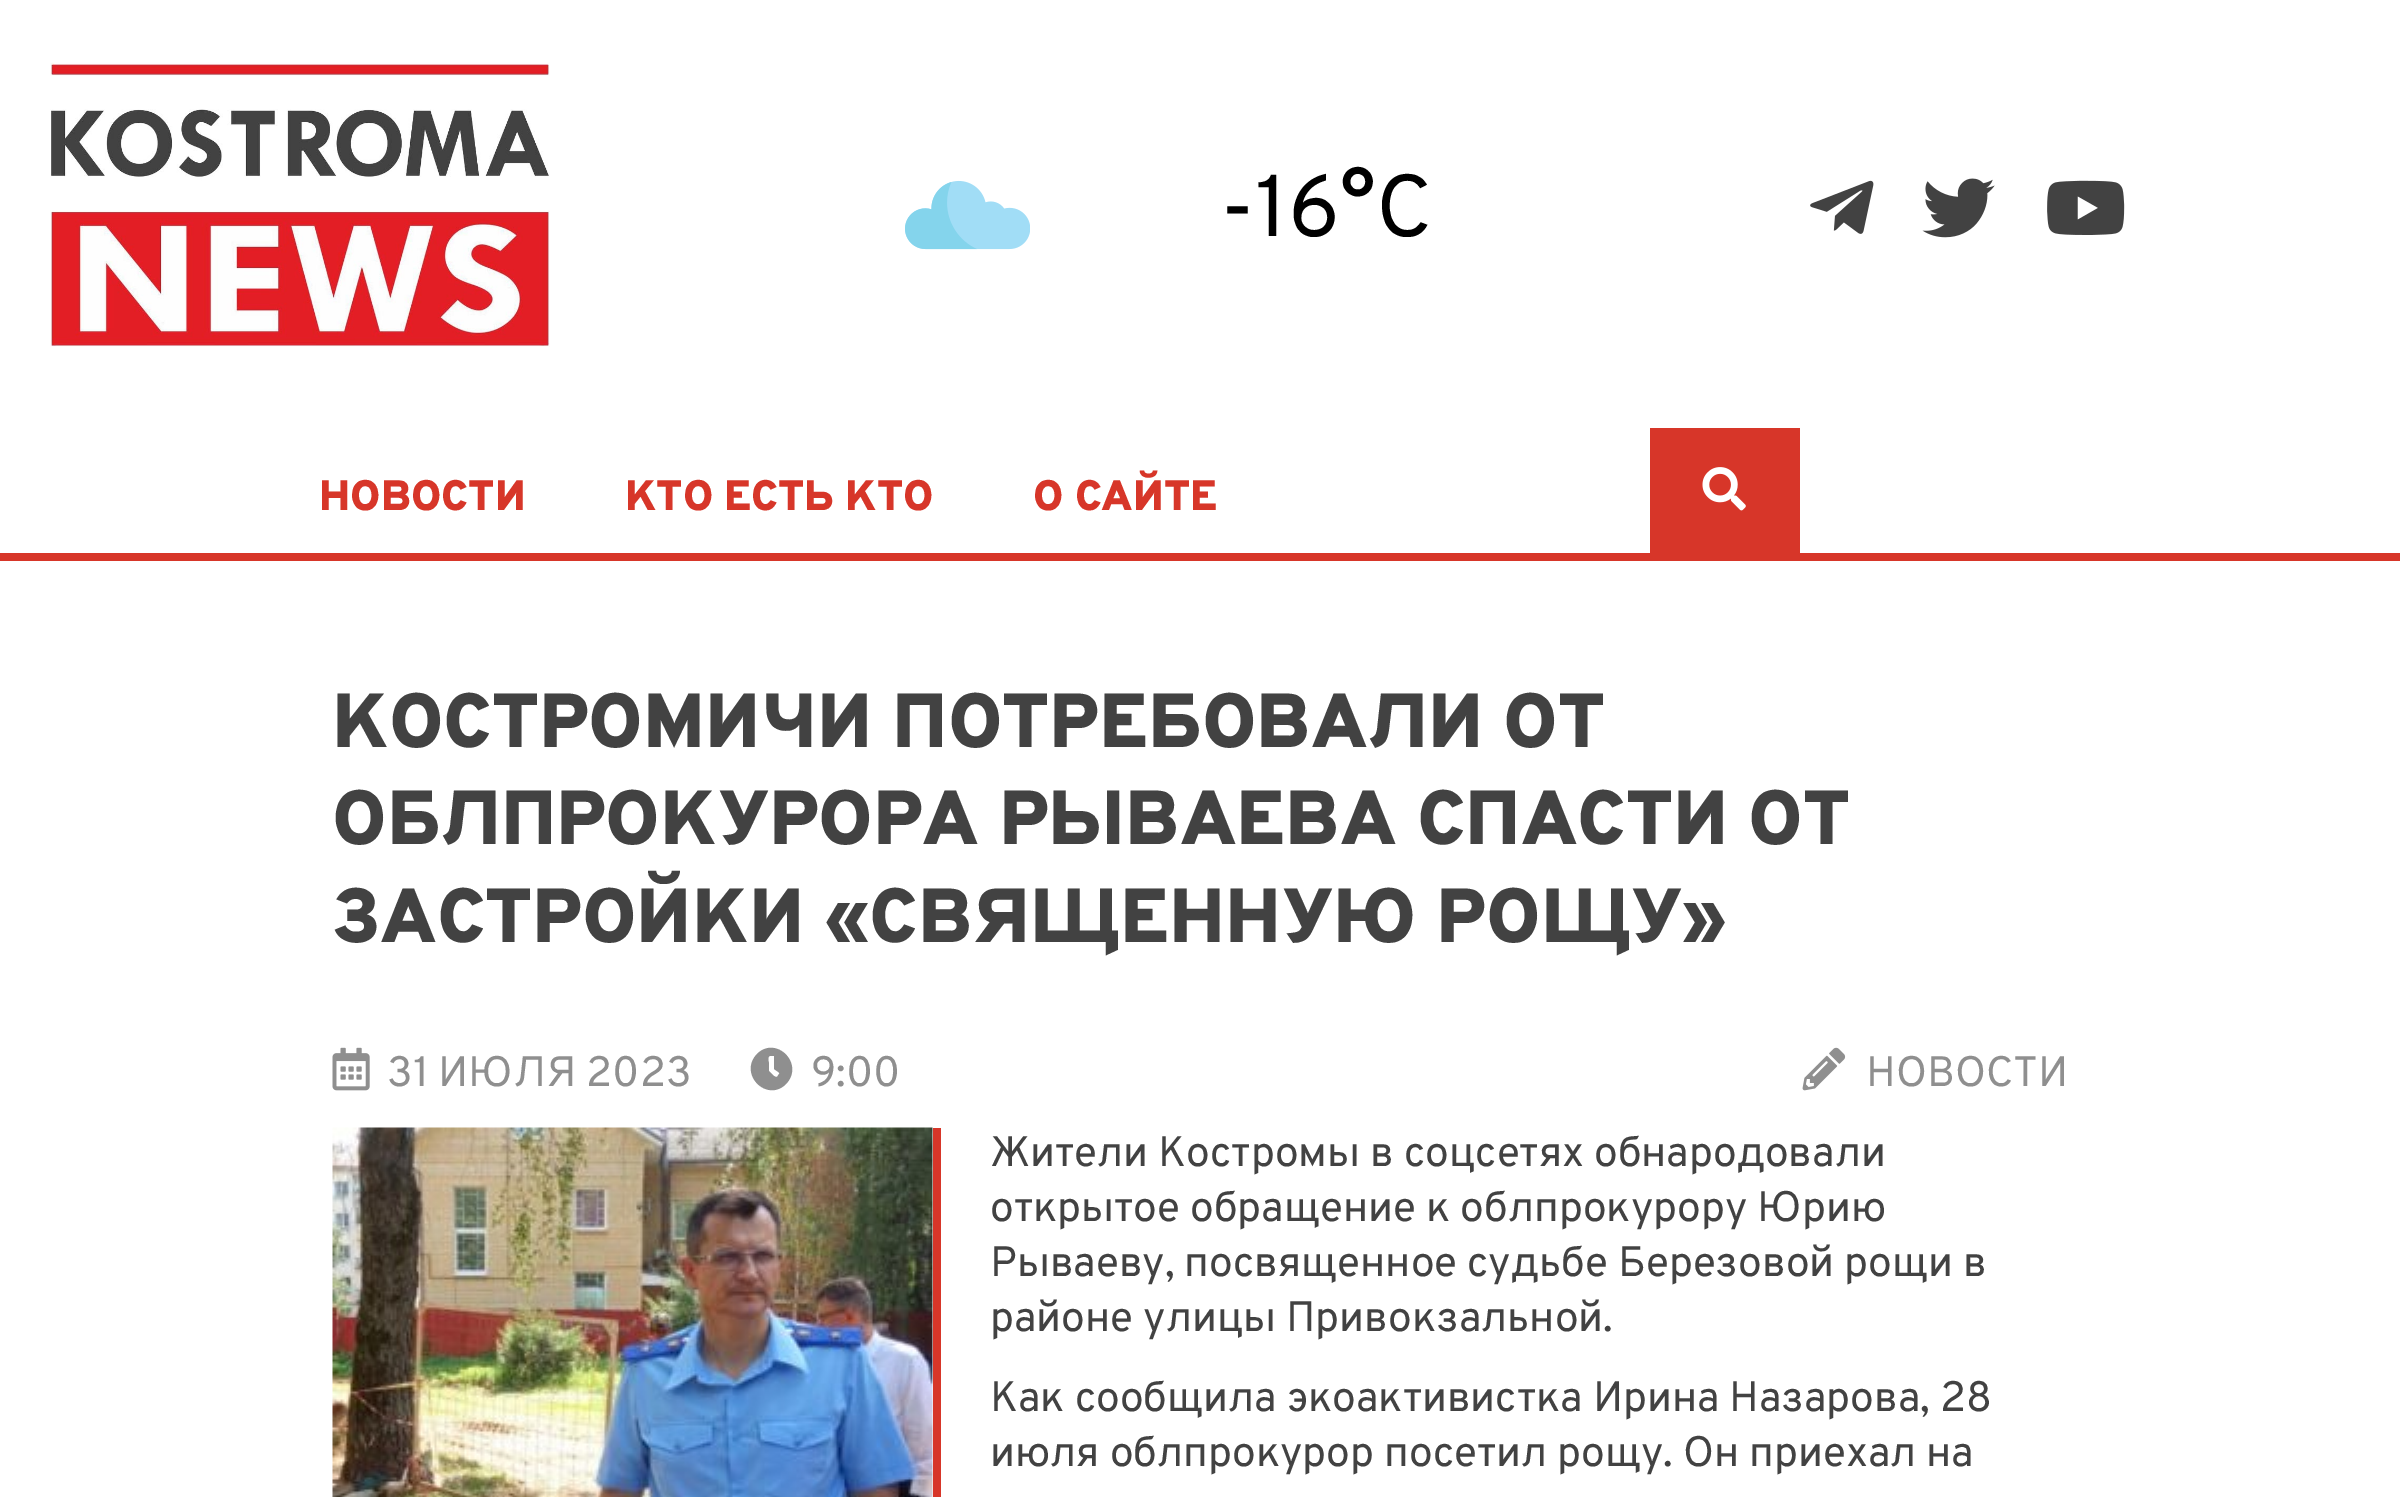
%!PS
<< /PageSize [2400 1497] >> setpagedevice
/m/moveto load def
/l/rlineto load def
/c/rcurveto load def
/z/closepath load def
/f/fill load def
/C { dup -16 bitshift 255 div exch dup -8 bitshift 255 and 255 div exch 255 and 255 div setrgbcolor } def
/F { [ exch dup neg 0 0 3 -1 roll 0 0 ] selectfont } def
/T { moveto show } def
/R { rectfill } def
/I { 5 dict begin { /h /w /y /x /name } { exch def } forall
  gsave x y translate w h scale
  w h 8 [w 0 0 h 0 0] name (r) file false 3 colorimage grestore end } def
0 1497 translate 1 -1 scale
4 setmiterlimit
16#FFFFFF C
0 0 2400 1497 R
16#D73629 C
0 553 2400 8 R
(1.rgb) 50 62 500 285 I
(2.rgb) 905 180 125 70 I
/Overpass-Regular 87.5 F
16#000000 C
(-16°C) 1220 236 T
(3.rgb) 1810 180 64 54 I
(4.rgb) 1922 178 73 60 I
(5.rgb) 2047 180 78 55 I
/Overpass-Black 42.5 F
16#D73629 C
(НОВОСТИ) 319 510 T
(КТО ЕСТЬ КТО) 625 510 T
(О САЙТЕ) 1033 510 T
1650 428 150 125 R
(6.rgb) 1702 467 44 44 I
/Overpass-Black 76.5 F
16#424242 C
(КОСТРОМИЧИ ПОТРЕБОВАЛИ ОТ) 332 747 T
(ОБЛПРОКУРОРА РЫВАЕВА СПАСТИ ОТ) 332 844 T
(ЗАСТРОЙКИ «СВЯЩЕННУЮ РОЩУ») 332 942 T
(7.rgb) 332 1047 38 44 I
/Overpass-Regular 42.5 F
16#8F8F8F C
(31 ИЮЛЯ 2023) 387 1086 T
757 1054 m 19 -19 48 10 29 30 c -19 19 -48 -10 -29 -30 c z 779 1074 m 2 -1 -4 -4 -5 -5 c 0 -13 l -4 0 l -3 0 -1 7 -1 8 c 0 7 l 5 5 l 3 2 3 1 5 -2 c z f
(9:00) 811 1086 T
(8.rgb) 1802 1047 44 44 I
(НОВОСТИ) 1866 1086 T
16#D73629 C
933 1128 8 369 R
(9.rgb) 332 1127 601 370 I
16#424242 C
(Жители Костромы в соцсетях обнародовали) 990 1166 T
(открытое обращение к облпрокурору Юрию) 990 1221 T
(Рываеву, посвященное судьбе Березовой рощи в) 990 1276 T
(районе улицы Привокзальной.) 990 1331 T
(Как сообщила экоактивистка Ирина Назарова, 28) 990 1411 T
(июля облпрокурор посетил рощу. Он приехал на) 990 1466 T
showpage
